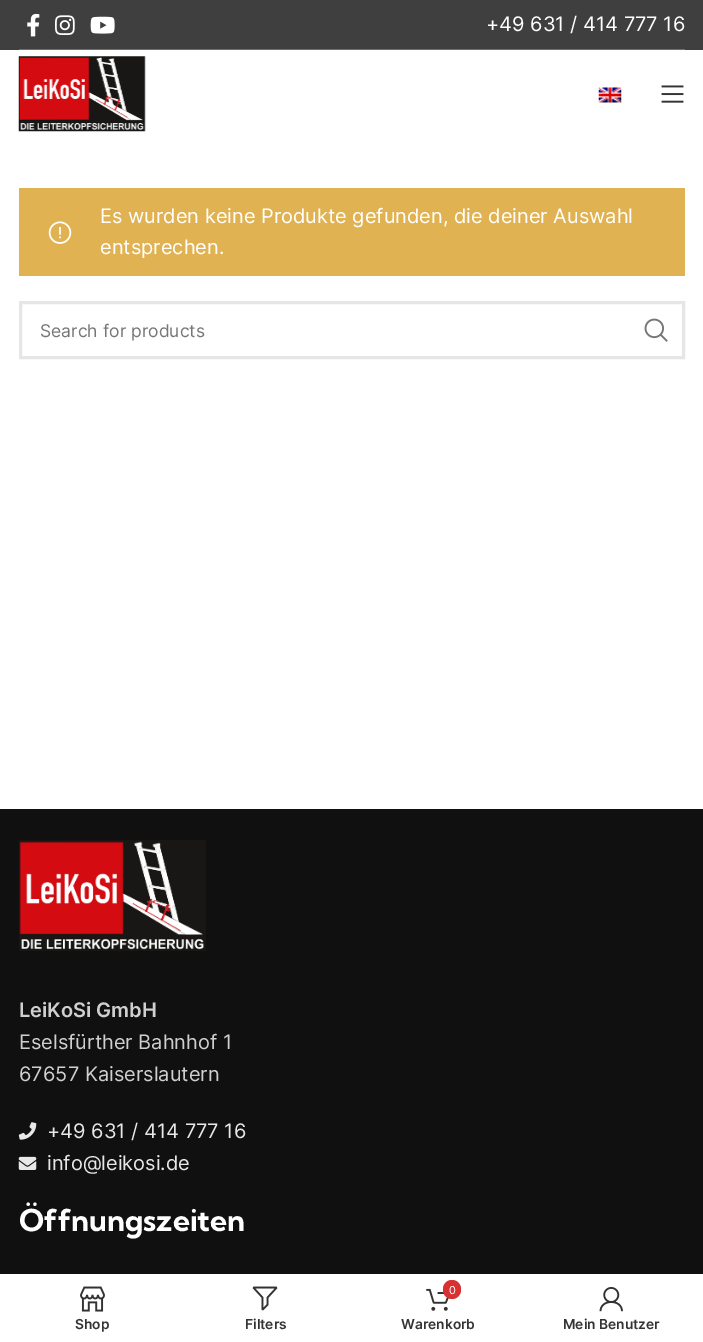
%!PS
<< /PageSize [703 1342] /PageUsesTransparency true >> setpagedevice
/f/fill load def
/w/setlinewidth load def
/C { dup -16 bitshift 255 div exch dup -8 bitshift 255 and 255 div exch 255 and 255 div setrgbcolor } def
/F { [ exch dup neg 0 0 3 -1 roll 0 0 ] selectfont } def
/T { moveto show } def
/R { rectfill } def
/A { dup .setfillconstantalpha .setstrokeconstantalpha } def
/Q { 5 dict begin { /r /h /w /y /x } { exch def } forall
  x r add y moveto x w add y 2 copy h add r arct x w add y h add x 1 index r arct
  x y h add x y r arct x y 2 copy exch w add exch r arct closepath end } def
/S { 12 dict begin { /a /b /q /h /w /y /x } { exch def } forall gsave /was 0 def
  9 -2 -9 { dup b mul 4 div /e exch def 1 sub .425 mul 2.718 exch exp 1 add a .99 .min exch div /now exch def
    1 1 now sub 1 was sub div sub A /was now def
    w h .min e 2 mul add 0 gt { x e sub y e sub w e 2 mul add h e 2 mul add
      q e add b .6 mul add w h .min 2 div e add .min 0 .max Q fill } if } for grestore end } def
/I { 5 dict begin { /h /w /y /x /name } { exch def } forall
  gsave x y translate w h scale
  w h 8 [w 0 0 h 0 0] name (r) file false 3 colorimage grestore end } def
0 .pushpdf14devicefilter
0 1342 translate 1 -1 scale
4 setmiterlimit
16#FFFFFF C
0 0 703 1342 R
16#3F3F3F C
0 0 703 50 R
16#6F6F6F C
19 49 666 1 R
(1.rgb) 27 13 13 24 I
(2.rgb) 55 15 20 20 I
(3.rgb) 90 16 25 18 I
/Inter-Regular 20 F
16#FFFFFF C
(+49 631 / 414 777 16) 486 31 T
(4.rgb) 18 56 128 76 I
(5.rgb) 598 87 24 16 I
(6.rgb) 661 85 23 18 I
16#E0B252 C
19 188 666 88 R
16#FFFFFF C
(Es wurden keine Produkte gefunden, die deiner Auswahl) 100 223 T
(7.rgb) 48 221 24 23 I
(entsprechen.) 100 254 T
16#E6E6E6 C
3 w
20.5 302.5 663 55 rectstroke
/Inter-Regular 17.5 F
16#777777 C
(Search for products) 40 337 T
(8.rgb) 644 318 24 24 I
16#101010 C
0 809 703 465 R
(9.rgb) 19 840 187 111 I
/Inter-SemiBold 20 F
16#CFCFCF C
(LeiKoSi GmbH) 19 1017 T
/Inter-Regular 20 F
(Eselsfürther Bahnhof 1) 19 1049 T
(67657 Kaiserslautern) 19 1081 T
(10.rgb) 18 1122 19 18 I
16#E7E7E7 C
(+49 631 / 414 777 16) 47 1138 T
(11.rgb) 18 1156 19 14 I
(info@leikosi.de) 47 1170 T
/KumbhSans-Bold 30 F
16#FFFFFF C
(Öffnungszeiten) 19 1231 T
16#000000 C
0 1274 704 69 0 5.5 .12 S
16#FFFFFF C
0 1274 703 68 R
(12.rgb) 80 1286 25 26 I
/Inter-SemiBold 13.75 F
16#333333 C
(Shop) 75 1329 T
(13.rgb) 252 1286 26 25 I
(Filters) 245 1329 T
(14.rgb) 426 1288 23 23 I
16#D83131 C
443 1280 18 19 9 Q f
/Inter-Regular 11 F
16#FFFFFF C
(0) 449 1294 T
/Inter-SemiBold 13.75 F
16#333333 C
(Warenkorb) 401 1329 T
(15.rgb) 599 1287 24 25 I
(Mein Benutzer) 563 1329 T
.poppdf14devicefilter showpage
